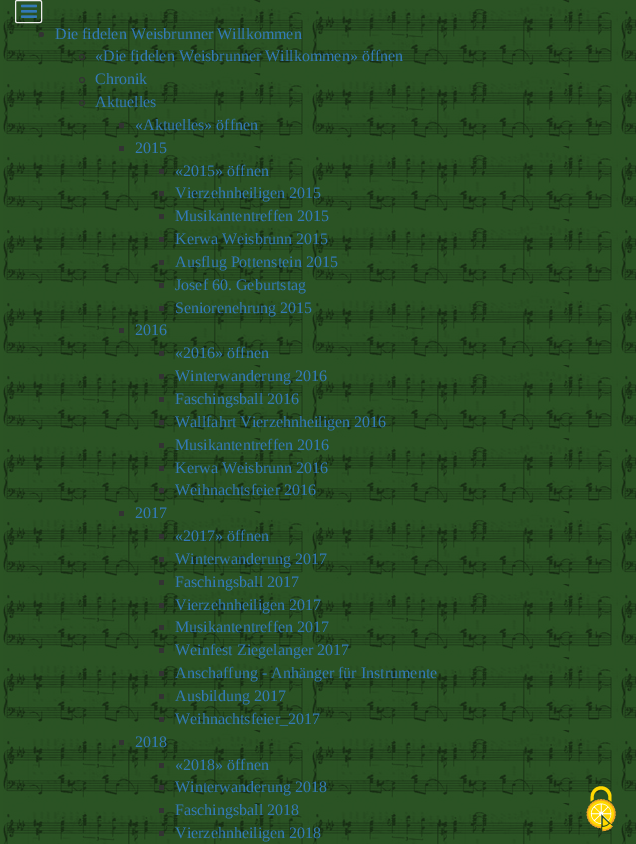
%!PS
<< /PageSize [636 844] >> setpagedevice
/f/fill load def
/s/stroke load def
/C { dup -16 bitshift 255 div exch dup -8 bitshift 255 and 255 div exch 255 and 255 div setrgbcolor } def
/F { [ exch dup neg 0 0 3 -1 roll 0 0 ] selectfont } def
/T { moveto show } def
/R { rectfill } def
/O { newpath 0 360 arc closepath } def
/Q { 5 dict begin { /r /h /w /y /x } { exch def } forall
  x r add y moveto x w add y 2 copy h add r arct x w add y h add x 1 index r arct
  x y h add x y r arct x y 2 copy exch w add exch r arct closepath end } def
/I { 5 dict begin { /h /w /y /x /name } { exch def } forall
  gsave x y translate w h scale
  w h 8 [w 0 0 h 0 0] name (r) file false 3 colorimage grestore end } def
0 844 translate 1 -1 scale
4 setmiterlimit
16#2B5424 C
0 0 636 844 R
(1.rgb) 3 0 633 844 I
16#EEEEEE C
15.5 .5 26 22 1.5 Q s
(2.rgb) 21 4 16 14 I
16#333333 C
41.5 34.5 2.5 O f
/LiberationSerif-Regular 16 F
16#337AB7 C
(Die fidelen Weisbrunner Willkommen) 55 39 T
16#333333 C
82 57 2.5 O s
16#337AB7 C
(«Die fidelen Weisbrunner Willkommen» öffnen) 95 61 T
16#333333 C
82 80 2.5 O s
16#337AB7 C
(Chronik) 95 84 T
16#333333 C
82 103 2.5 O s
16#337AB7 C
(Aktuelles) 95 107 T
16#333333 C
119 123 5 5 R
16#337AB7 C
(«Aktuelles» öffnen) 135 130 T
16#333333 C
119 146 5 5 R
16#337AB7 C
(2015) 135 153 T
16#333333 C
159 169 5 5 R
16#337AB7 C
(«2015» öffnen) 175 176 T
16#333333 C
159 191 5 5 R
16#337AB7 C
(Vierzehnheiligen 2015) 175 198 T
16#333333 C
159 214 5 5 R
16#337AB7 C
(Musikantentreffen 2015) 175 221 T
16#333333 C
159 237 5 5 R
16#337AB7 C
(Kerwa Weisbrunn 2015) 175 244 T
16#333333 C
159 260 5 5 R
16#337AB7 C
(Ausflug Pottenstein 2015) 175 267 T
16#333333 C
159 283 5 5 R
16#337AB7 C
(Josef 60. Geburtstag) 175 290 T
16#333333 C
159 306 5 5 R
16#337AB7 C
(Seniorenehrung 2015) 175 313 T
16#333333 C
119 328 5 5 R
16#337AB7 C
(2016) 135 335 T
16#333333 C
159 351 5 5 R
16#337AB7 C
(«2016» öffnen) 175 358 T
16#333333 C
159 374 5 5 R
16#337AB7 C
(Winterwanderung 2016) 175 381 T
16#333333 C
159 397 5 5 R
16#337AB7 C
(Faschingsball 2016) 175 404 T
16#333333 C
159 420 5 5 R
16#337AB7 C
(Wallfahrt Vierzehnheiligen 2016) 175 427 T
16#333333 C
159 443 5 5 R
16#337AB7 C
(Musikantentreffen 2016) 175 450 T
16#333333 C
159 466 5 5 R
16#337AB7 C
(Kerwa Weisbrunn 2016) 175 473 T
16#333333 C
159 488 5 5 R
16#337AB7 C
(Weihnachtsfeier 2016) 175 495 T
16#333333 C
119 511 5 5 R
16#337AB7 C
(2017) 135 518 T
16#333333 C
159 534 5 5 R
16#337AB7 C
(«2017» öffnen) 175 541 T
16#333333 C
159 557 5 5 R
16#337AB7 C
(Winterwanderung 2017) 175 564 T
16#333333 C
159 580 5 5 R
16#337AB7 C
(Faschingsball 2017) 175 587 T
16#333333 C
159 603 5 5 R
16#337AB7 C
(Vierzehnheiligen 2017) 175 610 T
16#333333 C
159 625 5 5 R
16#337AB7 C
(Musikantentreffen 2017) 175 632 T
16#333333 C
159 648 5 5 R
16#337AB7 C
(Weinfest Ziegelanger 2017) 175 655 T
16#333333 C
159 671 5 5 R
16#337AB7 C
(Anschaffung - Anhänger für Instrumente) 175 678 T
16#333333 C
159 694 5 5 R
16#337AB7 C
(Ausbildung 2017) 175 701 T
16#333333 C
159 717 5 5 R
16#337AB7 C
(Weihnachtsfeier_2017) 175 724 T
16#333333 C
119 740 5 5 R
16#337AB7 C
(2018) 135 747 T
16#333333 C
159 763 5 5 R
16#337AB7 C
(«2018» öffnen) 175 770 T
16#333333 C
159 785 5 5 R
16#337AB7 C
(Winterwanderung 2018) 175 792 T
16#333333 C
159 808 5 5 R
16#337AB7 C
(Faschingsball 2018) 175 815 T
16#333333 C
159 831 5 5 R
16#337AB7 C
(Vierzehnheiligen 2018) 175 838 T
(3.rgb) 586 786 30 46 I
showpage
